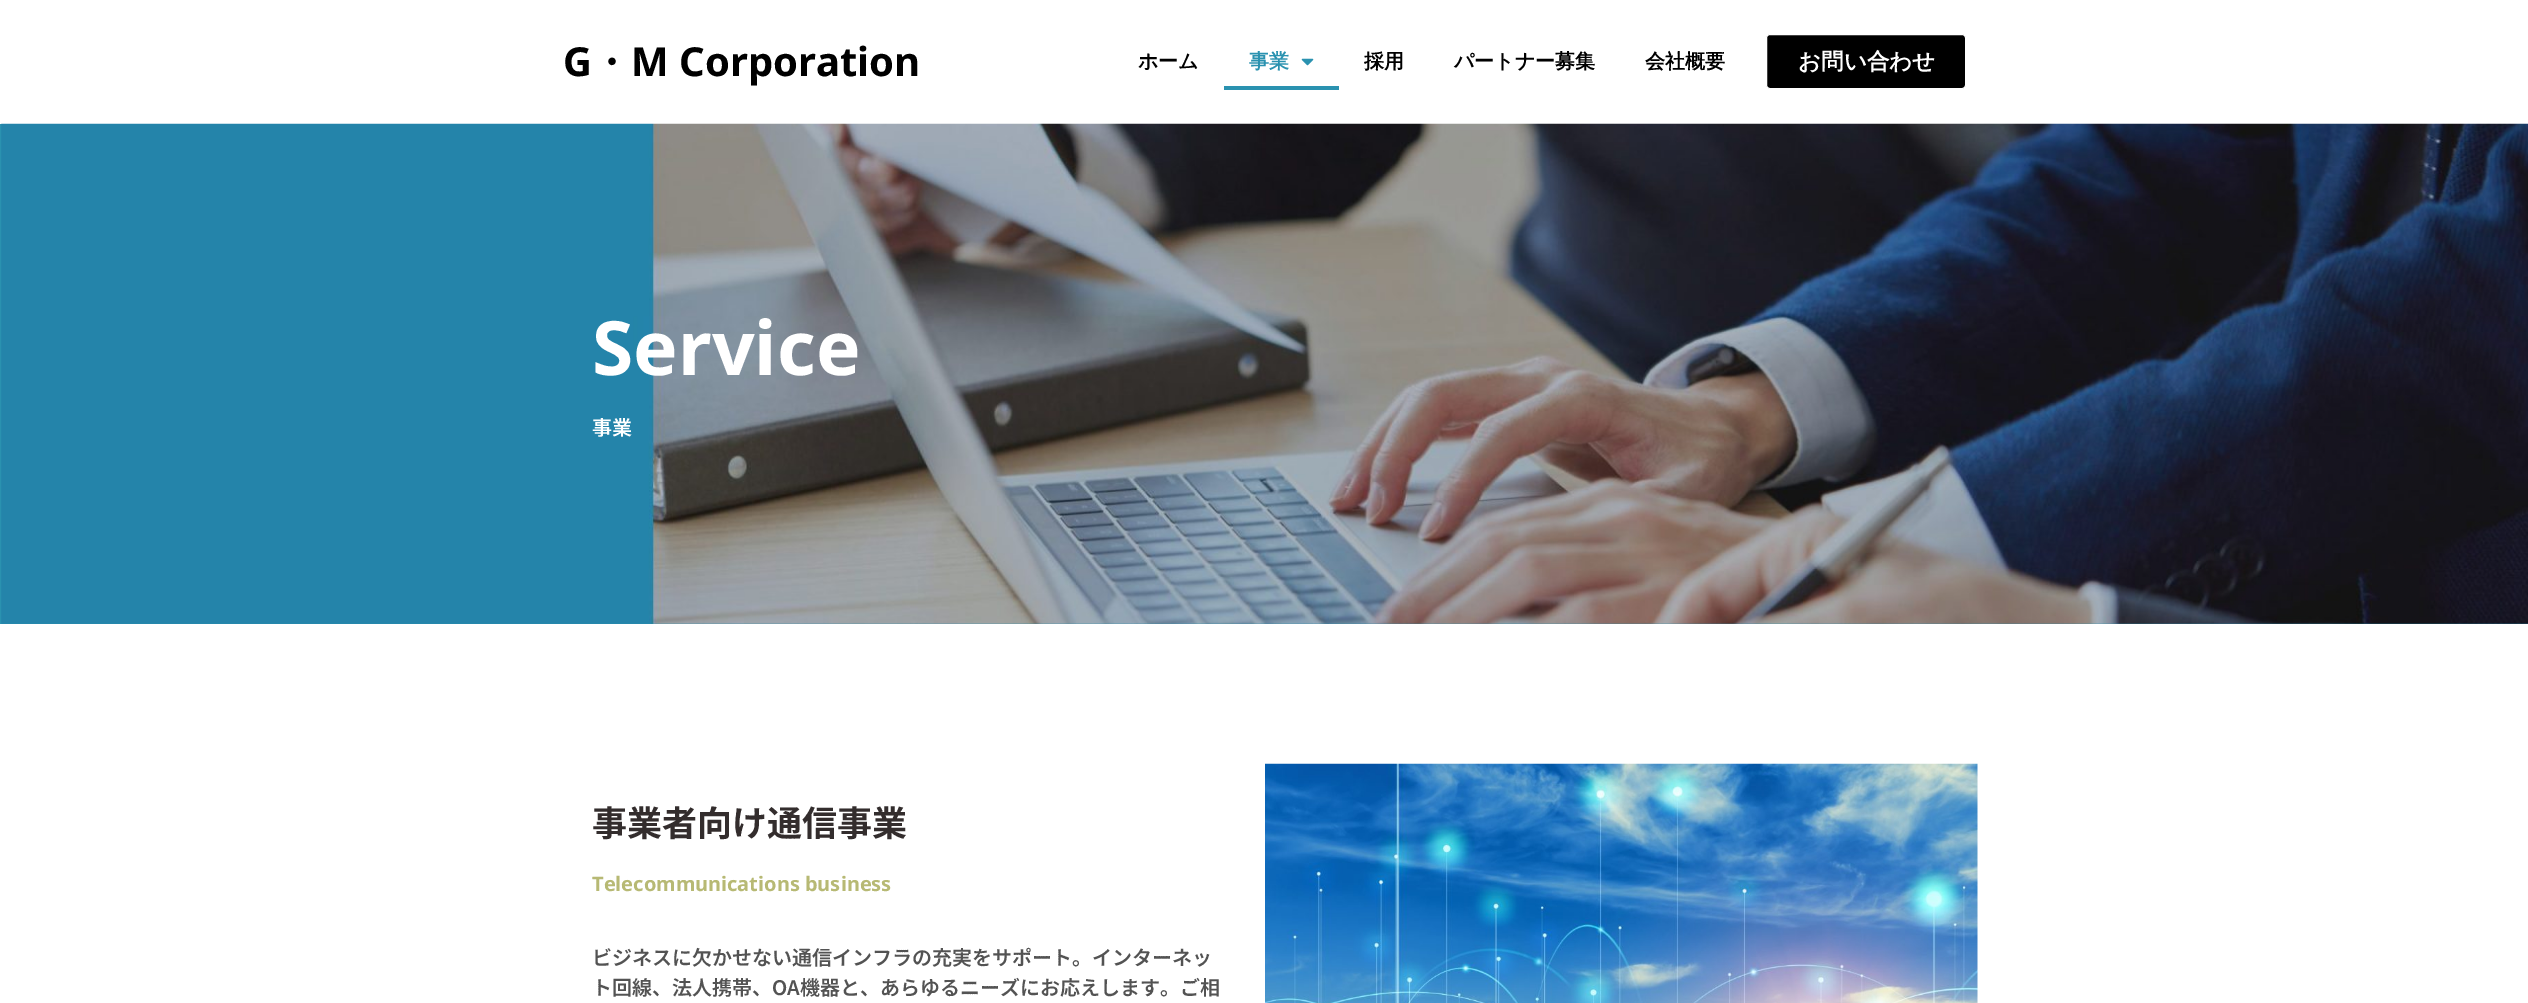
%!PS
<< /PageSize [2528 1003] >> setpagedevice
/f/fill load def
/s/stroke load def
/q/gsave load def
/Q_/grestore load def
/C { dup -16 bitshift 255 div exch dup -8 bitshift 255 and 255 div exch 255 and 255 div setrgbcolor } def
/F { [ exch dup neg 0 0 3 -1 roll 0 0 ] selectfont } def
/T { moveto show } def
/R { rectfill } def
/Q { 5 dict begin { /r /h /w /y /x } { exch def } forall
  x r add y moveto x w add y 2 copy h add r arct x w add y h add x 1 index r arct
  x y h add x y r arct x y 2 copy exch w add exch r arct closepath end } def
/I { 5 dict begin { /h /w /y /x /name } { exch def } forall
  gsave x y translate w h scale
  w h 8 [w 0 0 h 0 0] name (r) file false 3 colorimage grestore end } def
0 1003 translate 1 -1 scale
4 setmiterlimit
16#FFFFFF C
0 0 2528 1003 R
/NotoSans-Bold 40 F
16#000000 C
(G) 563 76 T
/WenQuanYiZenHei-Bold 40 F
(・) 591 76 T
/NotoSans-Bold 40 F
(M Corporation) 631 76 T
/WenQuanYiZenHei-Bold 20 F
(ホーム) 1138 68 T
16#2A92B0 C
(事業) 1249 68 T
(1.rgb) 1301 58 13 8 I
1224 86 115 4 R
16#000000 C
(採用) 1364 68 T
(パートナー募集) 1454 68 T
(会社概要) 1645 68 T
1766.5 34.5 199 54 3.5 Q q f Q_
16#FFFFFF C
s
/WenQuanYiZenHei-Bold 22.5 F
(お問い合わせ) 1798 69 T
16#2A92B0 C
0 124 2528 500 R
(2.rgb) 1 123 2527 501 I
/NotoSans-Bold 75 F
16#FFFFFF C
(Service) 592 375 T
/NotoSansJP-SemiBold 20 F
(事業) 592 435 T
/NotoSansJP-Bold 35 F
16#332D2D C
(事業者向け通信事業) 592 836 T
/NotoSans-Bold 20 F
16#B7B974 C
(Telecommunications business) 592 891 T
/NotoSansJP-SemiBold 20 F
16#535353 C
(ビジネスに欠かせない通信インフラの充実をサポート。インターネッ) 592 965 T
(ト回線、法人携帯、OA機器と、あらゆるニーズにお応えします。ご相) 592 995 T
(3.rgb) 1265 763 713 240 I
showpage
